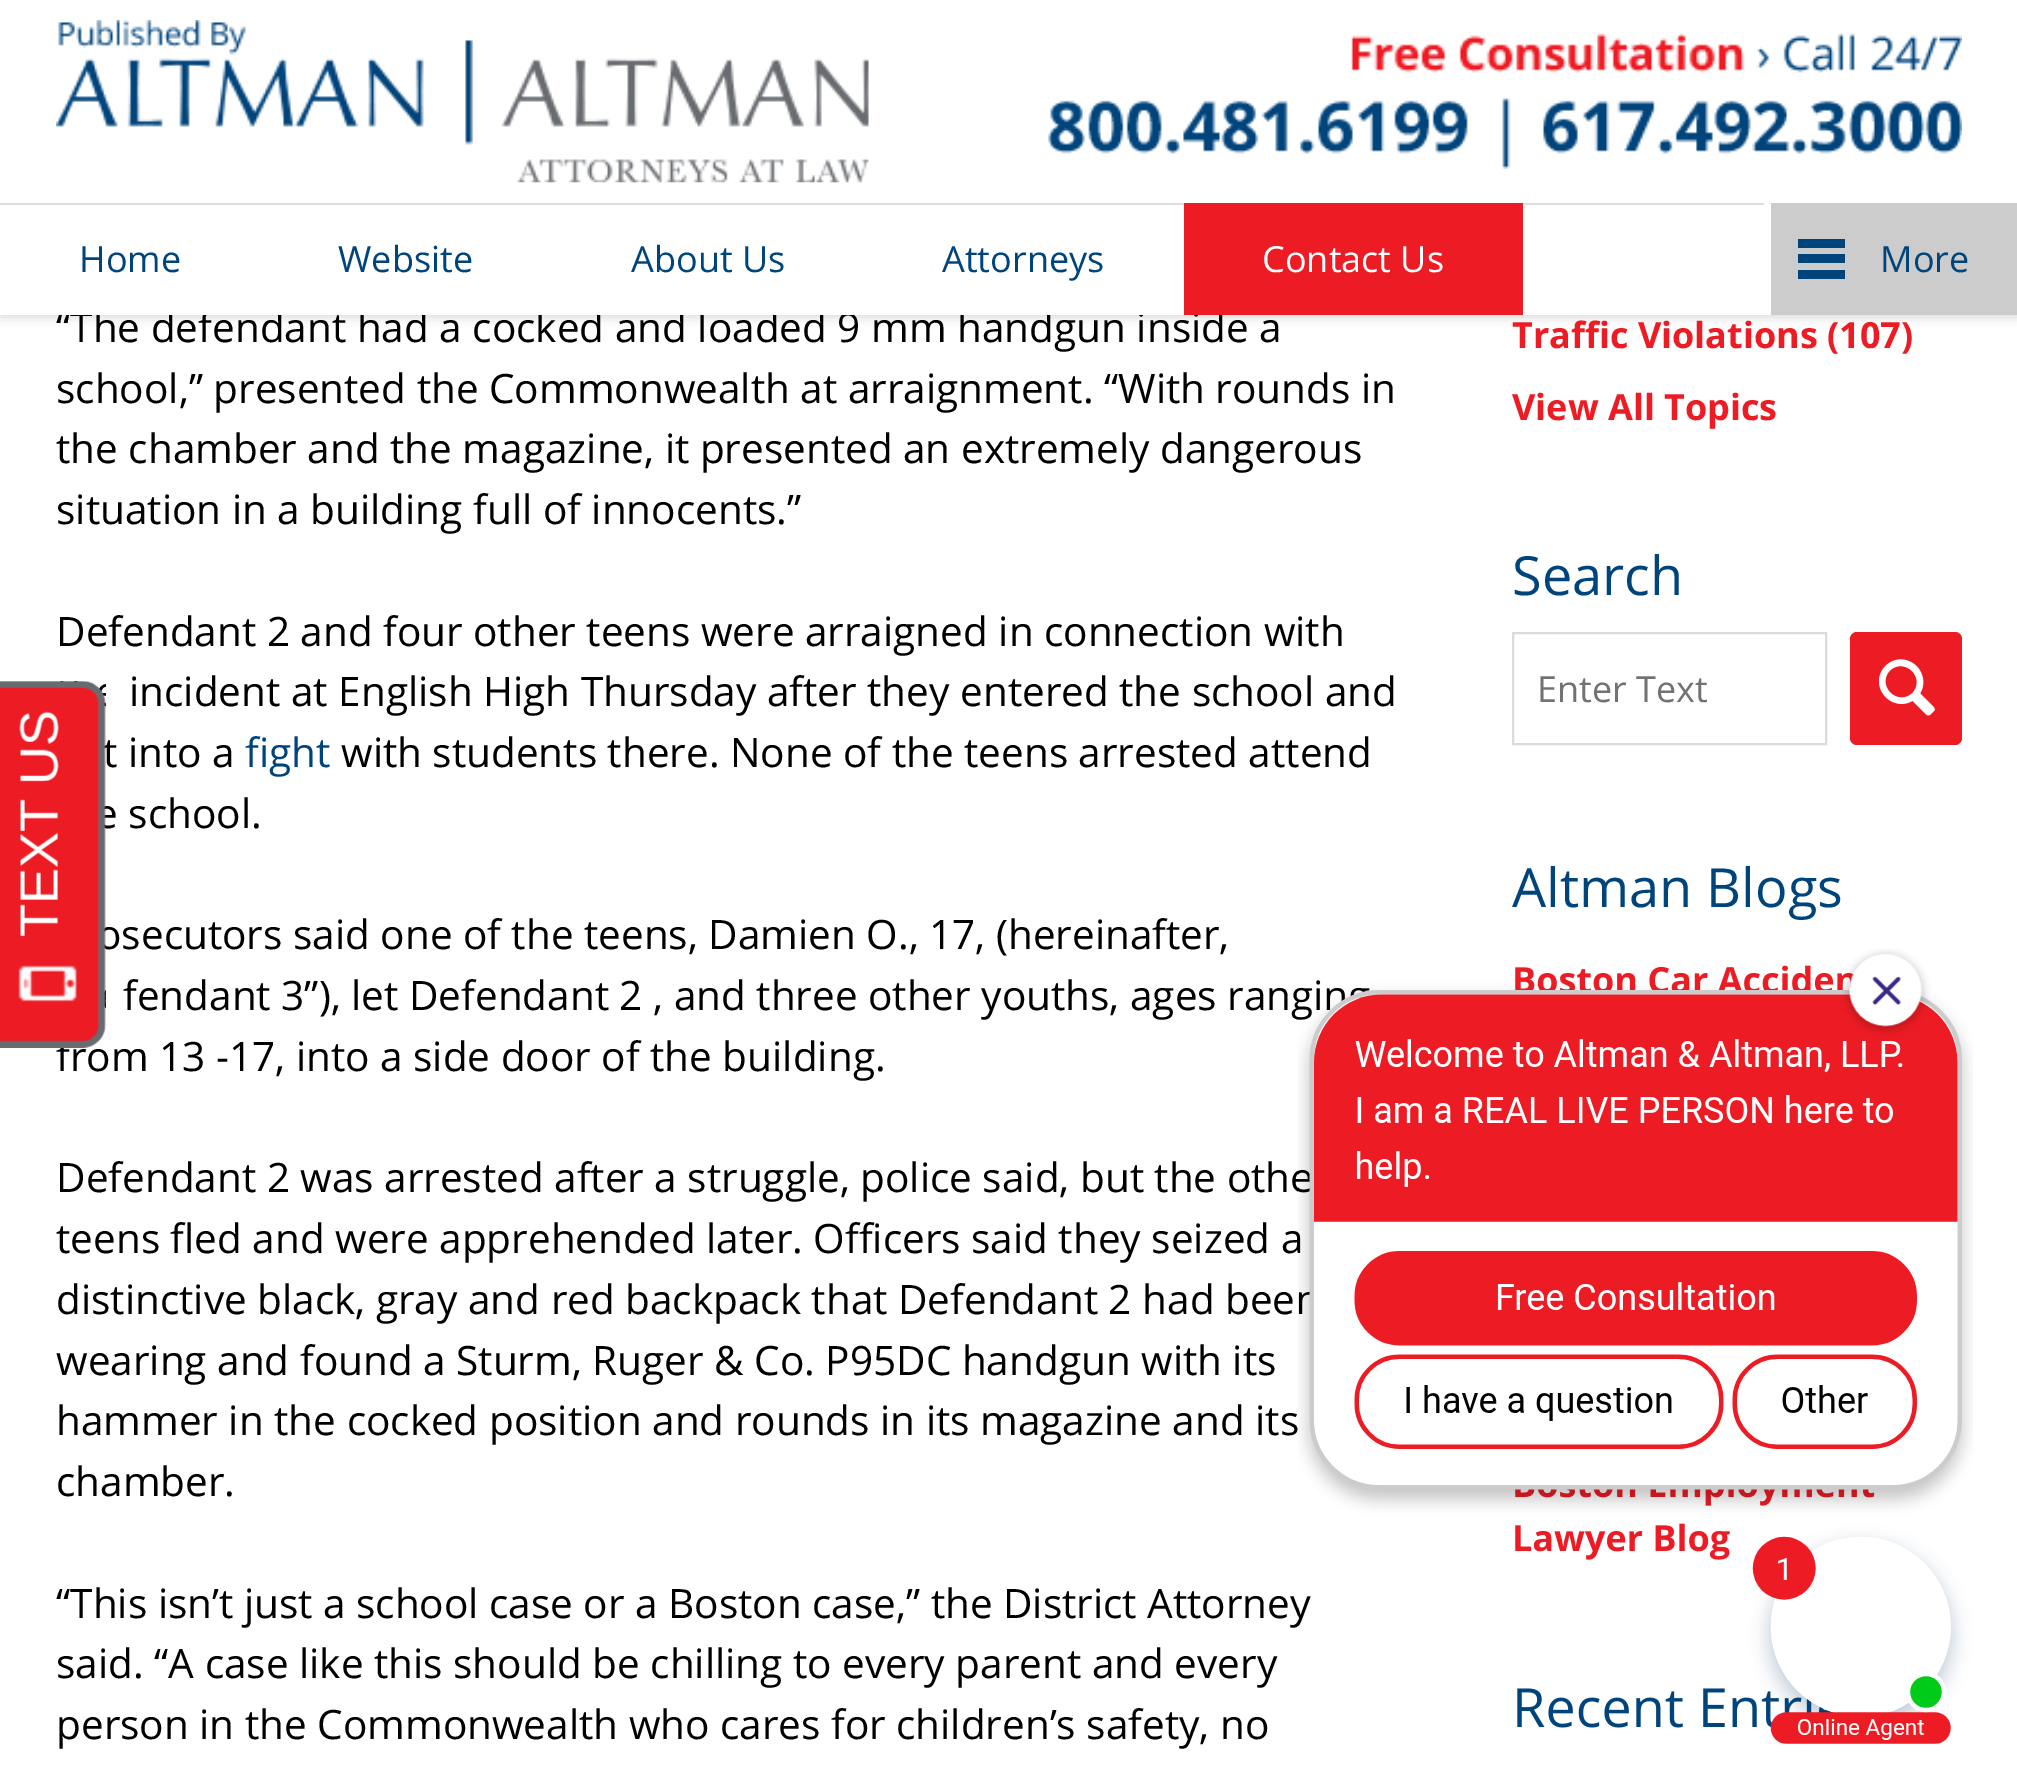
%!PS
<< /PageSize [2017 1770] /PageUsesTransparency true >> setpagedevice
/f/fill load def
/w/setlinewidth load def
/C { dup -16 bitshift 255 div exch dup -8 bitshift 255 and 255 div exch 255 and 255 div setrgbcolor } def
/F { [ exch dup neg 0 0 3 -1 roll 0 0 ] selectfont } def
/T { moveto show } def
/R { rectfill } def
/A { dup .setfillconstantalpha .setstrokeconstantalpha } def
/Q { 5 dict begin { /r /h /w /y /x } { exch def } forall
  x r add y moveto x w add y 2 copy h add r arct x w add y h add x 1 index r arct
  x y h add x y r arct x y 2 copy exch w add exch r arct closepath end } def
/S { 12 dict begin { /a /b /q /h /w /y /x } { exch def } forall gsave /was 0 def
  9 -2 -9 { dup b mul 4 div /e exch def 1 sub .425 mul 2.718 exch exp 1 add a .99 .min exch div /now exch def
    1 1 now sub 1 was sub div sub A /was now def
    w h .min e 2 mul add 0 gt { x e sub y e sub w e 2 mul add h e 2 mul add
      q e add b .6 mul add w h .min 2 div e add .min 0 .max Q fill } if } for grestore end } def
/I { 5 dict begin { /h /w /y /x /name } { exch def } forall
  gsave x y translate w h scale
  w h 8 [w 0 0 h 0 0] name (r) file false 3 colorimage grestore end } def
0 .pushpdf14devicefilter
0 1770 translate 1 -1 scale
4 setmiterlimit
16#FFFFFF C
0 0 2017 1770 R
/OpenSans-Regular 40.5 F
16#000000 C
(t into a) 103 767 T
(e school.) 95 828 T
(osecutors said one of the teens, Damien O., 17, \(hereinafter,) 97 949 T
(from 13 -17, into a side door of the building.) 56 1071 T
(1.rgb) 0 681 106 367 I
0 2 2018 315 0 5.5 .15 S
(“The defendant had a cocked and loaded 9 mm handgun inside a) 56 342 T
16#FFFFFF C
0 0 2017 315 R
(2.rgb) 56 20 813 163 I
(3.rgb) 1048 33 914 136 I
16#DDDDDD C
0 203 1764 2 R
/OpenSans-Regular 36 F
16#00447C C
(Home) 79 272 T
(Website) 338 272 T
(About Us) 631 272 T
(Attorneys) 942 272 T
16#ED1C24 C
1184 203 339 112 R
16#FFFFFF C
(Contact Us) 1262 272 T
16#CCCCCC C
1771 203 246 112 R
16#00447C C
1798 270 47 9 R
1798 254 47 9 R
1798 239 47 9 R
(More) 1880 272 T
/OpenSans-Regular 40.5 F
16#000000 C
(school,” presented the Commonwealth at arraignment. “With rounds in) 56 403 T
(the chamber and the magazine, it presented an extremely dangerous) 56 463 T
(situation in a building full of innocents.”) 56 524 T
(Defendant 2 and four other teens were arraigned in connection with) 56 646 T
(incident at English High Thursday after they entered the school and) 129 706 T
16#00447C C
(fight) 245 767 T
16#000000 C
(with students there. None of the teens arrested attend) 341 767 T
(fendant 3”\), let Defendant 2 , and three other youths, ages rangi) 123 1010 T
(Defendant 2 was arrested after a struggle, police said, but the othe) 56 1192 T
(teens fled and were apprehended later. Officers said they seized a) 56 1253 T
(distinctive black, gray and red backpack that Defendant 2 had been) 56 1314 T
(wearing and found a Sturm, Ruger & Co. P95DC handgun with its) 56 1375 T
(hammer in the cocked position and rounds in its magazine and its) 56 1435 T
(chamber.) 56 1496 T
(“This isn’t just a school case or a Boston case,” the District Attorney) 56 1618 T
(said. “A case like this should be chilling to every parent and every) 56 1678 T
(person in the Commonwealth who cares for children’s safety, no) 56 1739 T
/OpenSans-Bold 36 F
16#ED1C24 C
(Traffic Violations \(107\)) 1512 348 T
(View All Topics) 1512 420 T
/OpenSans-Regular 54 F
16#00447C C
(Search) 1512 595 T
16#DBDBDB C
2 w
1513 633 313 111 rectstroke
/OpenSans-Regular 36 F
16#727272 C
(Enter Text) 1537 702 T
16#ED1C24 C
1850 632 112 113 7 Q f
(4.rgb) 1879 659 56 57 I
/OpenSans-Regular 54 F
16#00447C C
(Altman Blogs) 1512 907 T
/OpenSans-Bold 36 F
16#ED1C24 C
(Boston Car Acciden) 1512 993 T
(Lawyer Blog) 1512 1551 T
/OpenSans-Regular 54 F
16#00447C C
(Recent En) 1512 1727 T
(5.rgb) 1298 949 675 795 I
.poppdf14devicefilter showpage
